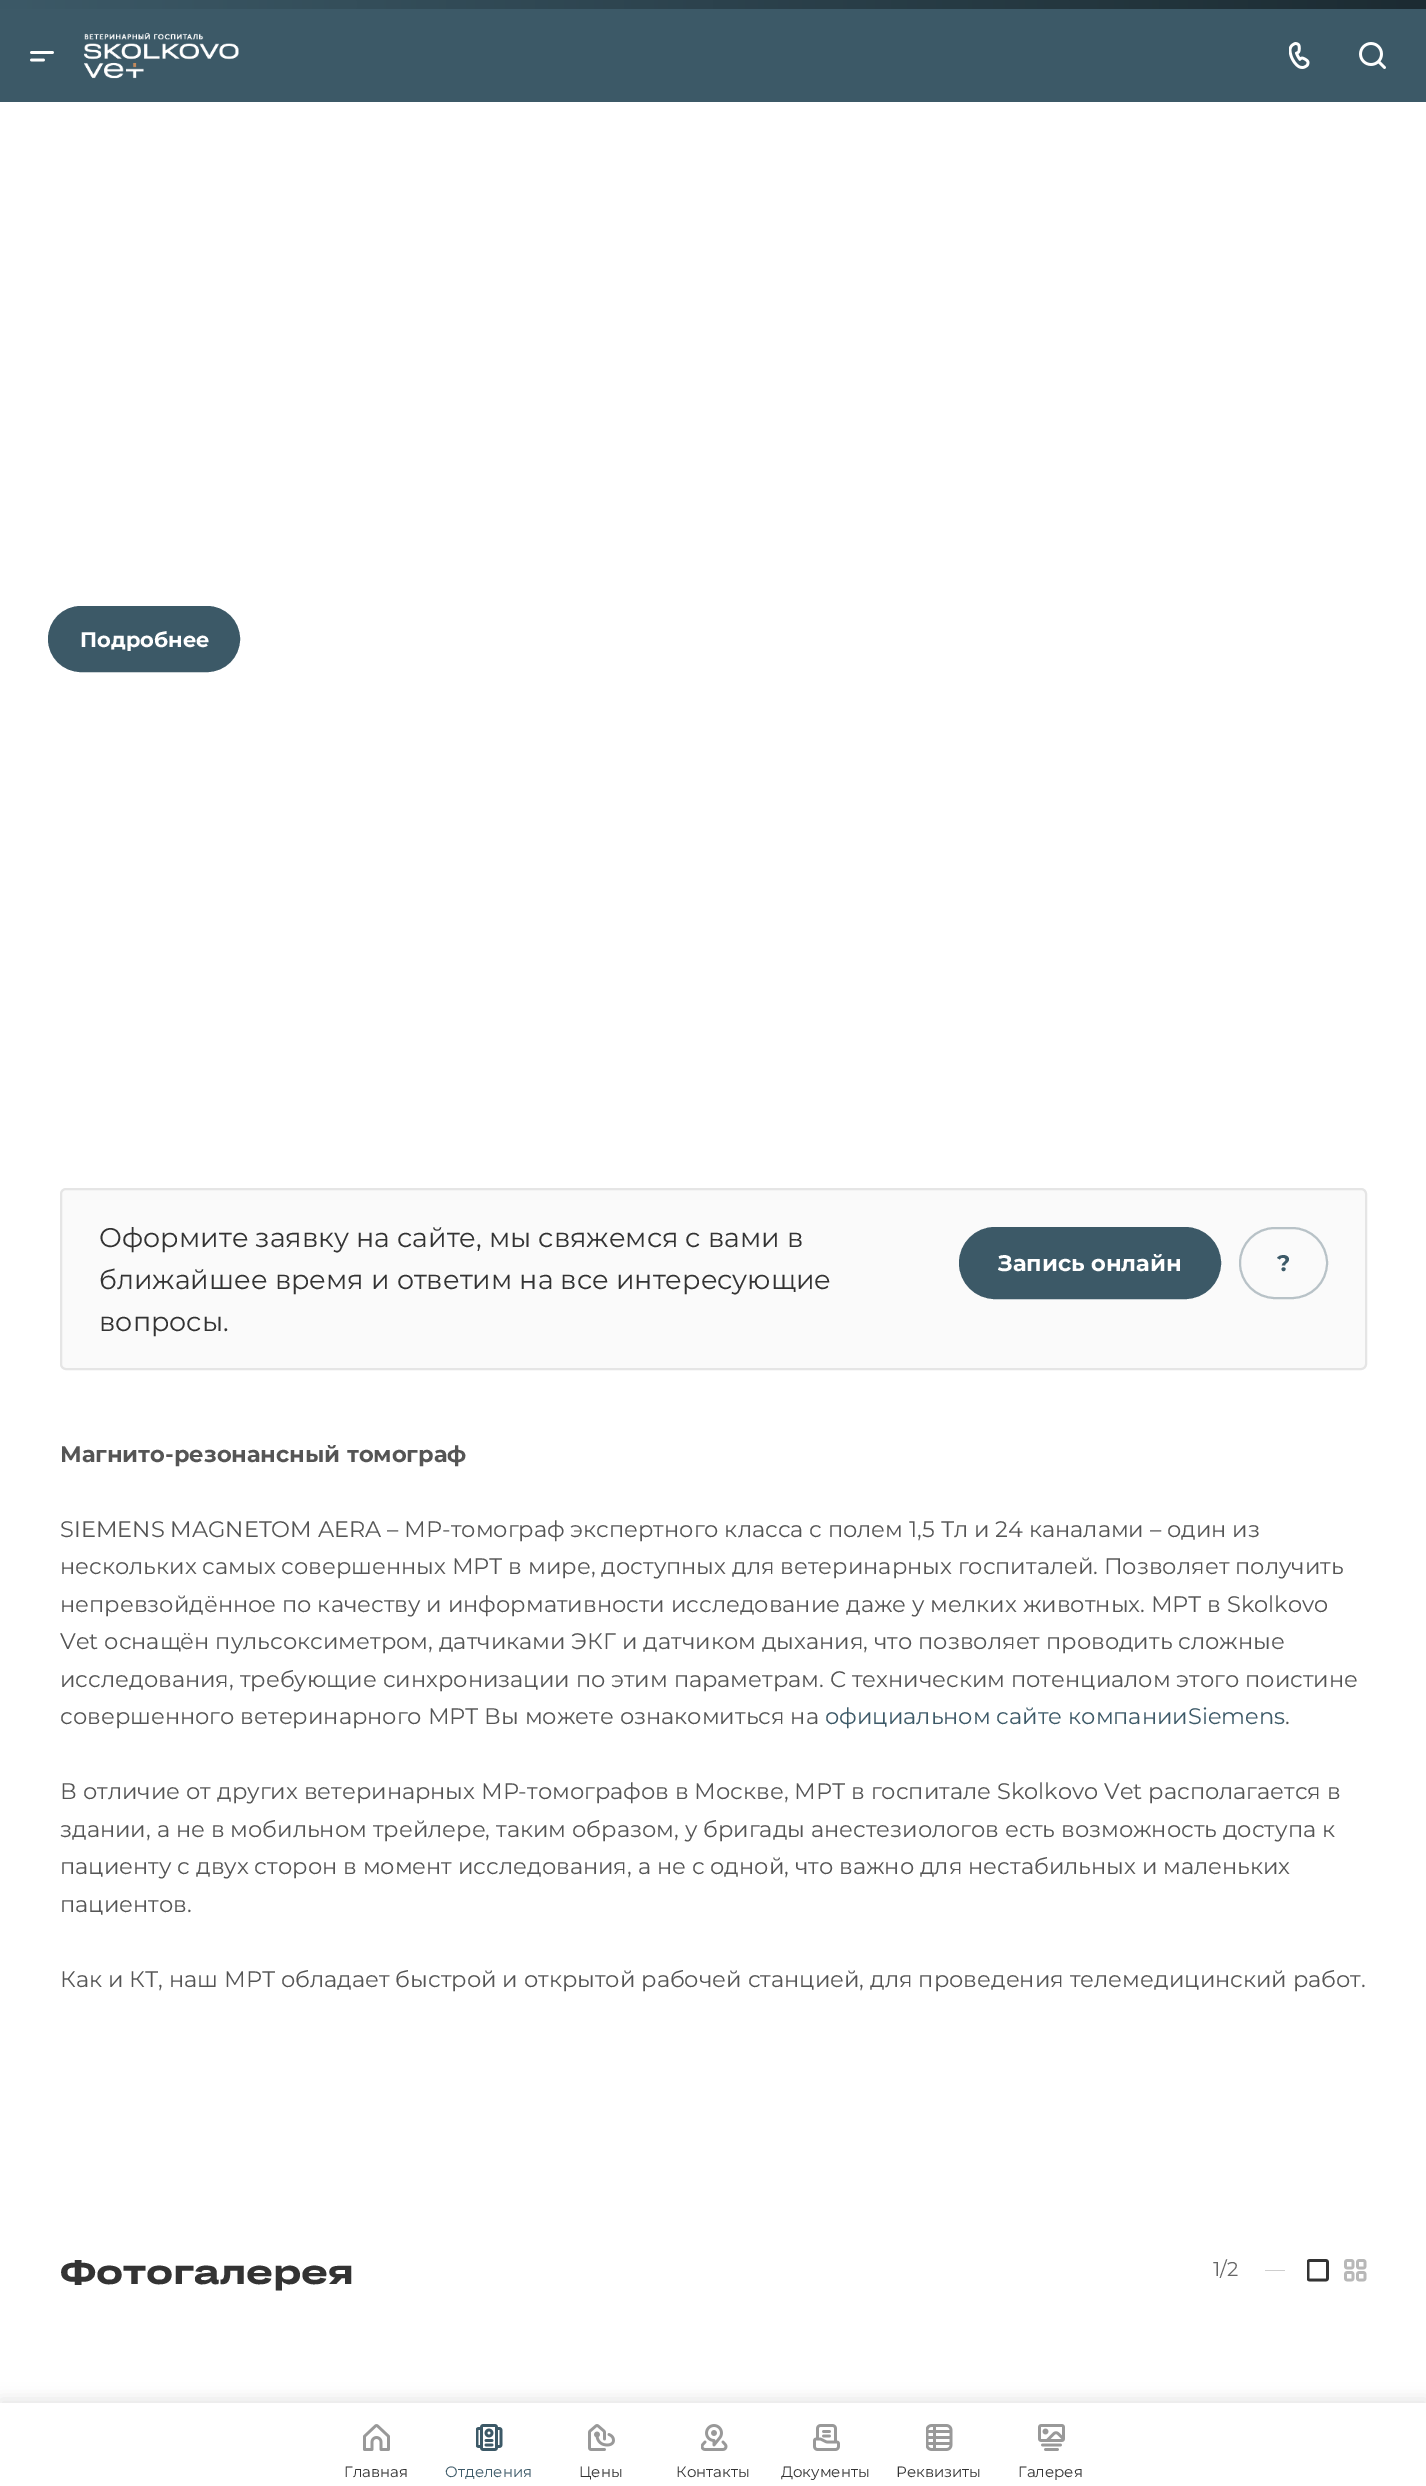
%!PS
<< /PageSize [1426 2486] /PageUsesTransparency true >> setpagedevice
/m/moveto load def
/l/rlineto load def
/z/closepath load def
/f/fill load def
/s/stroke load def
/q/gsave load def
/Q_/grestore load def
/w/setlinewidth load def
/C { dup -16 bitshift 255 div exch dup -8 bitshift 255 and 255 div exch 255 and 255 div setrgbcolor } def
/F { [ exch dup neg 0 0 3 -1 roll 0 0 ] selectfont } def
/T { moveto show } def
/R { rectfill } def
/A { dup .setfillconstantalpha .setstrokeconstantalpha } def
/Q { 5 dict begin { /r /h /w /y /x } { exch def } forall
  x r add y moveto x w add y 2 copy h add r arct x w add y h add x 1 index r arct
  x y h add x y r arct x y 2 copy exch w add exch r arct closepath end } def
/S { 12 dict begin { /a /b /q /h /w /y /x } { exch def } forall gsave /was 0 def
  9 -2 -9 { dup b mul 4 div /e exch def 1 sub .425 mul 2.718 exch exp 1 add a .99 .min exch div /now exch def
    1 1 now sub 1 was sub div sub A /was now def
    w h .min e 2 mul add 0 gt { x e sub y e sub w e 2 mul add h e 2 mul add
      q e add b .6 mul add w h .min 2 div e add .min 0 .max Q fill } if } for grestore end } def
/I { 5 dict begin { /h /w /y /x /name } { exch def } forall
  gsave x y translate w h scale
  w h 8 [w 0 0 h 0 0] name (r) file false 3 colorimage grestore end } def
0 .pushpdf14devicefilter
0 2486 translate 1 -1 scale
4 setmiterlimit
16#FFFFFF C
0 0 1426 2486 R
q 0 0 m 1426 0 l 0 9 l -1426 0 l z clip newpath
<< /ShadingType 2 /ColorSpace /DeviceRGB /Coords [0 4.5 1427 4.5] /Extend [true true] /Function << /FunctionType 2 /Domain [0 1] /C0 [.235 .349 .404] /C1 [.11 .169 .196] /N 1 >> >> shfill Q_
16#3C5967 C
0 9 1426 93 R
(1.rgb) 30 51 24 11 I
(2.rgb) 84 33 155 46 I
(3.rgb) 1289 42 21 27 I
(4.rgb) 1359 42 27 27 I
49 607 190 64 32 Q q f Q_
2 w
s
/Montserrat-Bold 21 F
16#FFFFFF C
(Подробнее) 80 647 T
16#FAFAFA C
61 1189 1305 180 5 Q q f Q_
16#E5E5E5 C
s
/Montserrat-Regular 27 F
16#333333 C
(Оформите заявку на сайте, мы свяжемся с вами в) 99 1247 T
(ближайшее время и ответим на все интересующие) 99 1289 T
(вопросы.) 99 1331 T
16#3C5967 C
960 1228 260 70 35 Q q f Q_
s
/Montserrat-Bold 22.5 F
16#FFFFFF C
(Запись онлайн) 998 1271 T
16#B8C2C7 C
1240 1228 87 70 35 Q s
16#3C5967 C
(?) 1277 1271 T
16#555555 C
(Магнито-резонансный томограф) 60 1462 T
/Montserrat-Regular 22.5 F
(SIEMENS MAGNETOM AERA – МР-томограф экспертного класса с полем 1,5 Тл и 24 каналами – один из) 60 1537 T
(нескольких самых совершенных МРТ в мире, доступных для ветеринарных госпиталей. Позволяет получить) 60 1574 T
(непревзойдённое по качеству и информативности исследование даже у мелких животных. МРТ в Skolkovo) 60 1612 T
(Vet оснащён пульсоксиметром, датчиками ЭКГ и датчиком дыхания, что позволяет проводить сложные) 60 1649 T
(исследования, требующие синхронизации по этим параметрам. С техническим потенциалом этого поистине) 60 1687 T
(совершенного ветеринарного МРТ Вы можете ознакомиться на) 60 1724 T
16#3C5967 C
(официальном сайте компанииSiemens) 825 1724 T
16#555555 C
(.) 1285 1724 T
(В отличие от других ветеринарных МР-томографов в Москве, МРТ в госпитале Skolkovo Vet располагается в) 60 1799 T
(здании, а не в мобильном трейлере, таким образом, у бригады анестезиологов есть возможность доступа к) 60 1837 T
(пациенту с двух сторон в момент исследования, а не с одной, что важно для нестабильных и маленьких) 60 1874 T
(пациентов.) 60 1912 T
(Как и КТ, наш МРТ обладает быстрой и открытой рабочей станцией, для проведения телемедицинский работ.) 60 1987 T
/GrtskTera-Bold 33 F
16#333333 C
(Фотогалерея) 60 2284 T
/Montserrat-Regular 20 F
16#666666 C
(1/2) 1213 2276 T
16#CECECE C
(—) 1265 2276 T
(5.rgb) 1307 2259 22 23 I
(6.rgb) 1344 2259 23 23 I
16#000000 C
0 2399 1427 84 0 7.5 .1 S
16#FFFFFF C
0 2403 1426 83 R
(7.rgb) 363 2424 27 27 I
/Montserrat-Regular 15 F
16#333333 C
(Главная) 344 2477 T
(8.rgb) 476 2424 27 27 I
16#3C5967 C
(Отделения) 445 2477 T
(9.rgb) 588 2424 27 27 I
16#333333 C
(Цены) 579 2477 T
(10.rgb) 701 2424 27 27 I
(Контакты) 676 2477 T
(11.rgb) 813 2424 27 27 I
(Документы) 781 2477 T
(12.rgb) 926 2424 27 27 I
(Реквизиты) 896 2477 T
(13.rgb) 1038 2424 27 27 I
(Галерея) 1018 2477 T
.poppdf14devicefilter showpage
